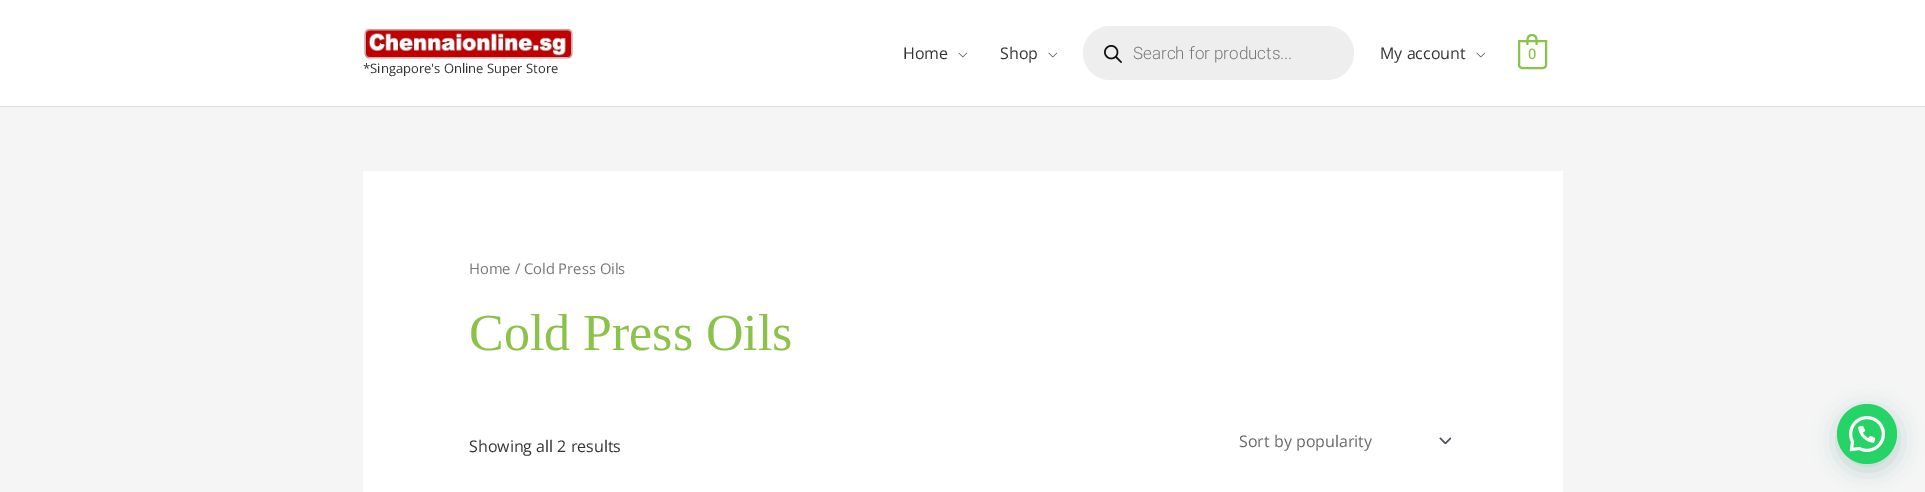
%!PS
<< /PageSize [1925 492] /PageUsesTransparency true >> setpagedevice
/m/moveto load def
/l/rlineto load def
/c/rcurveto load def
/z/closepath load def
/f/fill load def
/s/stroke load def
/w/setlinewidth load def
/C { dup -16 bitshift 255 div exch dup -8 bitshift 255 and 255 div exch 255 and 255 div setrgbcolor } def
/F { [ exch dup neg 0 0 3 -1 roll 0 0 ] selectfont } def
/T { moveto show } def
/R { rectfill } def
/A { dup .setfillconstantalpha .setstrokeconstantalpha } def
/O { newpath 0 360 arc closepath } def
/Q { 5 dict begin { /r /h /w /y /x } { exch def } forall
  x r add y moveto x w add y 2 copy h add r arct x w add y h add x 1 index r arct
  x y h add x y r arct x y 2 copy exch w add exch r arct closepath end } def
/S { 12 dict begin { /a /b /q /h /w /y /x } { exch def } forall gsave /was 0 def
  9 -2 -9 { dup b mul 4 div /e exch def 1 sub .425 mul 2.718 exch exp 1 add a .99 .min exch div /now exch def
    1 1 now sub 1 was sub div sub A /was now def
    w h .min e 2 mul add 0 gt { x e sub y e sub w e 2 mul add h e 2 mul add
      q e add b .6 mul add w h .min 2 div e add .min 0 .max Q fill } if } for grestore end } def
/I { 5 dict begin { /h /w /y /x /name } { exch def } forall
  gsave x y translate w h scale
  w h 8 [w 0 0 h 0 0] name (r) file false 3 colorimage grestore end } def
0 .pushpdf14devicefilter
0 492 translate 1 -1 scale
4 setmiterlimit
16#F5F5F5 C
0 0 1925 492 R
16#FFFFFF C
0 0 1925 106 R
16#DDDDDD C
0 106 1925 1 R
/OpenSans-Regular 16 F
16#333333 C
(Home) 903 59 T
(1.rgb) 958 52 9 6 I
(Shop) 1000 59 T
(1.rgb) 1048 52 9 6 I
16#EEEEEE C
1083 26 271 54 27 Q f
(2.rgb) 1104 45 18 18 I
/Roboto-Light 17 F
16#777777 C
(Search for products...) 1133 59 T
/OpenSans-Regular 16 F
16#333333 C
(My account) 1380 59 T
(1.rgb) 1476 52 9 6 I
16#8BC34A C
2 w
1519 41 m 27 0 l 0 24 l 0 1.5 -1.5 3 -3 3 c -21 0 l -1.5 0 -3 -1.5 -3 -3 c z s
1532 34 m 6.5 0 5.5 6.5 5.5 11 c -11 0 l 0 -4.5 -1 -11 5.5 -11 c z 1532 36 m 4.5 0 3.5 6 3.5 9 c -7 0 l 0 -3 -1 -9 3.5 -9 c z eofill
/OpenSans-Bold 14 F
(0) 1528 59 T
(3.rgb) 363 28 210 31 I
/OpenSans-Regular 13 F
16#333333 C
(*Singapore's Online Super Store) 363 73 T
16#FFFFFF C
363 171 1200 321 R
/OpenSans-Regular 14.75 F
16#777777 C
(Home / Cold Press Oils) 469 274 T
/LiberationSerif-Regular 52 F
16#8BC34A C
(Cold Press Oils) 469 350 T
/OpenSans-Regular 16 F
16#333333 C
(Showing all 2 results) 469 452 T
(4.rgb) 1439 437 12 7 I
16#666666 C
(Sort by popularity) 1239 447 T
16#075E54 C
1838 410 60 60 30 12 .24 S
16#25D366 C
1867 434 30 O f
(5.rgb) 1849 416 36 36 I
.poppdf14devicefilter showpage
